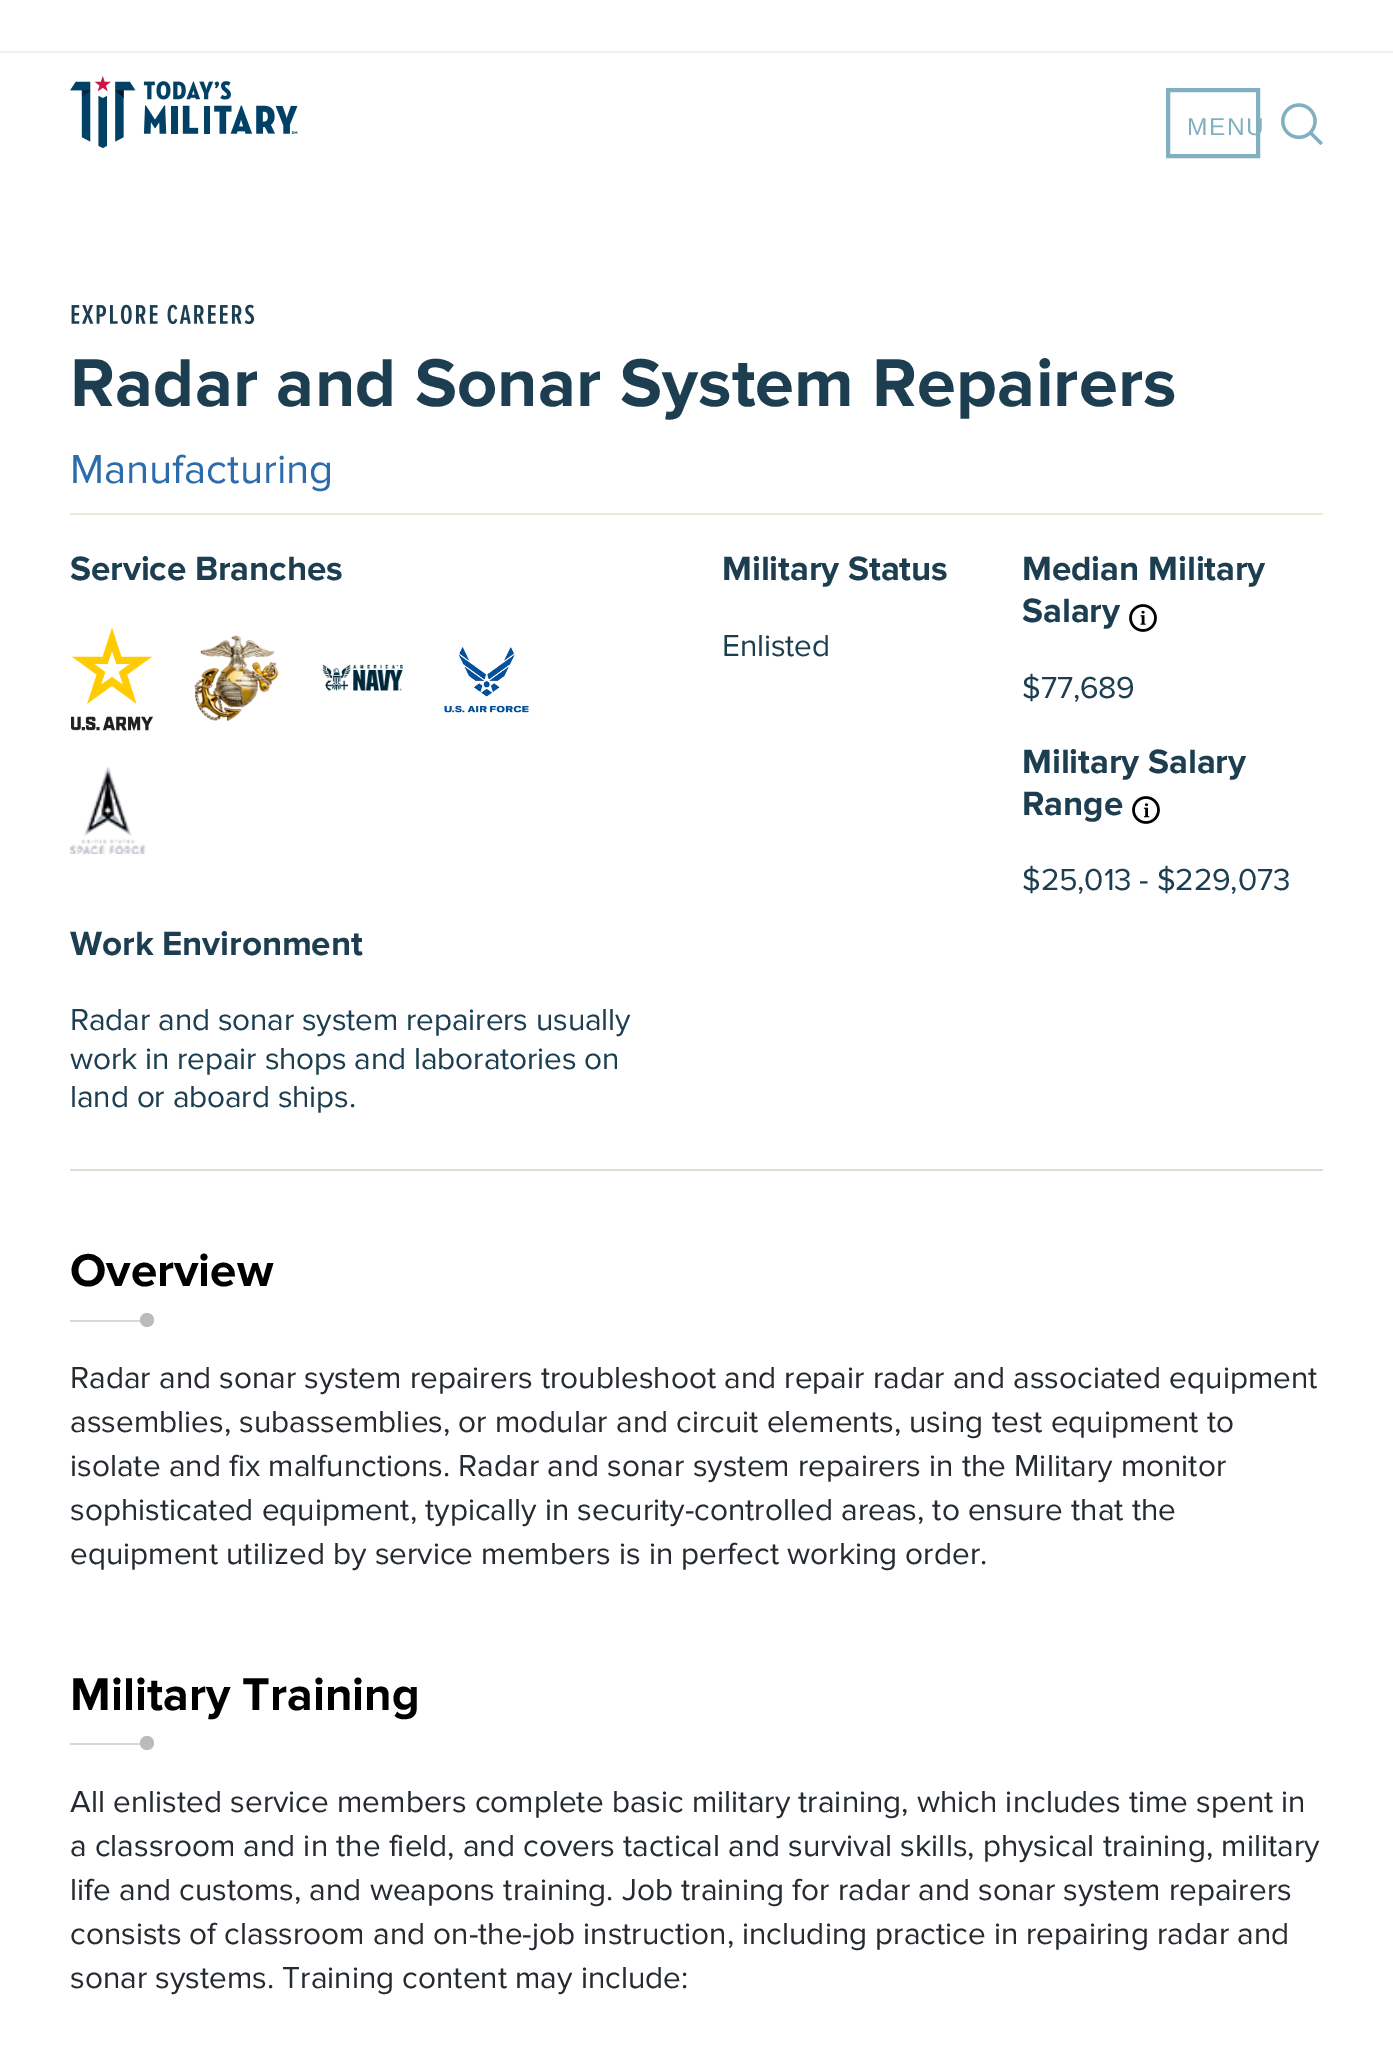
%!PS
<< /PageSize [1393 2046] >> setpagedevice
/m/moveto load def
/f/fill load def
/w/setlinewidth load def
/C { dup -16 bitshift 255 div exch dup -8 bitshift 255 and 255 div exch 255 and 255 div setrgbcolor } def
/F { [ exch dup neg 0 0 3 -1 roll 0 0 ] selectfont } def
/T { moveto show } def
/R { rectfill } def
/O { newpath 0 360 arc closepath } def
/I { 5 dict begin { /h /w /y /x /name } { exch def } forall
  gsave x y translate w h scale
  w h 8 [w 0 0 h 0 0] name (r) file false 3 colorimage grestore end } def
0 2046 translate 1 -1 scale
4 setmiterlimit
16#FFFFFF C
0 0 1393 2046 R
16#F0F0F0 C
0 51 1393 2 R
(1.rgb) 70 76 228 73 I
16#83B0C0 C
4 w
1168 90 90 66 rectstroke
/LiberationSans-Regular 24.5 F
1187 135 m 1.5 0 (MENU) ashow
(2.rgb) 1281 103 42 42 I
16#DFDCD2 C
70 1169 1253 2 R
16#ECEAD6 C
70 513 1253 2 R
(3.rgb) 71 304 184 21 I
/ProximaNova-Bold 70 F
16#1C3E50 C
70 406 m .2 0 (Radar and Sonar System Repairers) ashow
/ProximaNova-Regular 42 F
16#2C6BAC C
(Manufacturing) 70 483 T
/ProximaNova-Bold 35 F
16#1C3E50 C
70 580 m -.1 0 (Service Branches) ashow
(4.rgb) 71 627 82 104 I
(5.rgb) 194 635 85 86 I
(6.rgb) 322 664 81 27 I
(7.rgb) 444 647 85 66 I
(8.rgb) 70 766 76 88 I
70 955 m -.1 0 (Work Environment) ashow
/ProximaNova-Regular 31.5 F
70 1030 m -.15 0 (Radar and sonar system repairers usually) ashow
70 1069 m -.15 0 (work in repair shops and laboratories on) ashow
70 1107 m -.15 0 (land or aboard ships.) ashow
/ProximaNova-Bold 35 F
722 580 m -.1 0 (Military Status) ashow
/ProximaNova-Regular 31.5 F
722 656 m -.15 0 (Enlisted) ashow
/ProximaNova-Bold 35 F
1022 580 m -.1 0 (Median Military) ashow
1022 622 m -.1 0 (Salary) ashow
(9.rgb) 1129 604 28 28 I
/ProximaNova-Regular 31.5 F
1022 698 m -.15 0 ($77,689) ashow
/ProximaNova-Bold 35 F
1022 773 m -.1 0 (Military Salary) ashow
1022 815 m -.1 0 (Range) ashow
(10.rgb) 1132 796 28 28 I
/ProximaNova-Regular 31.5 F
1022 890 m -.15 0 ($25,013 - $229,073) ashow
/ProximaNova-Bold 47.5 F
16#000000 C
(Overview) 70 1286 T
16#D8D8D8 C
70 1320 70 2 R
16#BBBBBB C
147 1320 7 O f
/ProximaNova-Regular 31.5 F
16#262B32 C
(Radar and sonar system repairers troubleshoot and repair radar and associated equipment) 70 1388 T
(assemblies, subassemblies, or modular and circuit elements, using test equipment to) 70 1432 T
(isolate and fix malfunctions. Radar and sonar system repairers in the Military monitor) 70 1476 T
(sophisticated equipment, typically in security-controlled areas, to ensure that the) 70 1520 T
(equipment utilized by service members is in perfect working order.) 70 1564 T
/ProximaNova-Bold 47.5 F
16#000000 C
(Military Training) 70 1710 T
16#D8D8D8 C
70 1743 70 2 R
16#BBBBBB C
147 1743 7 O f
/ProximaNova-Regular 31.5 F
16#262B32 C
(All enlisted service members complete basic military training, which includes time spent in) 70 1812 T
(a classroom and in the field, and covers tactical and survival skills, physical training, military) 70 1856 T
(life and customs, and weapons training. Job training for radar and sonar system repairers) 70 1900 T
(consists of classroom and on-the-job instruction, including practice in repairing radar and) 70 1944 T
(sonar systems. Training content may include:) 70 1988 T
showpage
